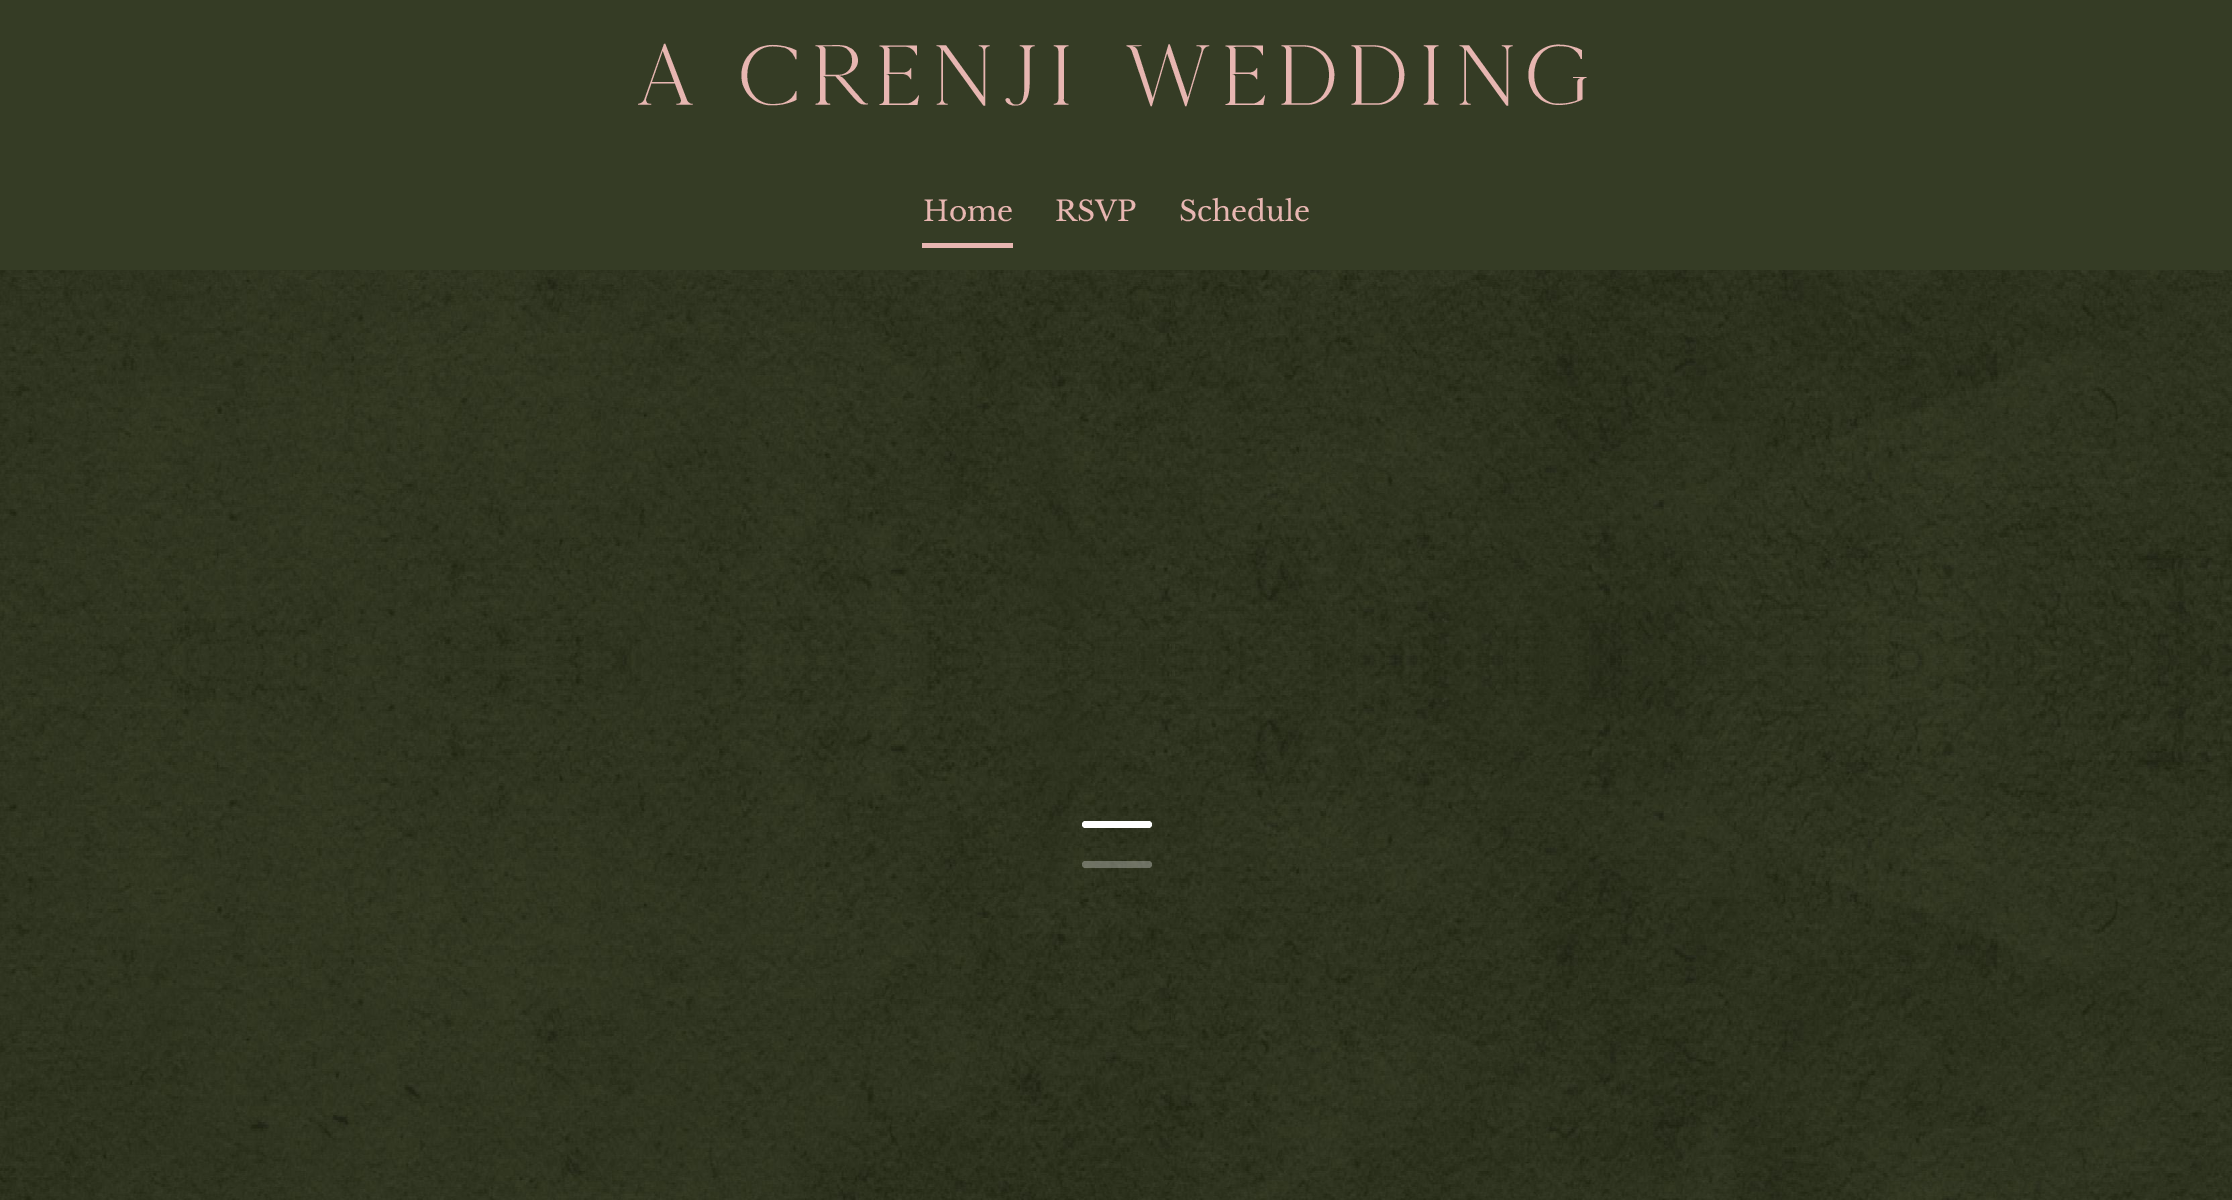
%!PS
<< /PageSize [2232 1200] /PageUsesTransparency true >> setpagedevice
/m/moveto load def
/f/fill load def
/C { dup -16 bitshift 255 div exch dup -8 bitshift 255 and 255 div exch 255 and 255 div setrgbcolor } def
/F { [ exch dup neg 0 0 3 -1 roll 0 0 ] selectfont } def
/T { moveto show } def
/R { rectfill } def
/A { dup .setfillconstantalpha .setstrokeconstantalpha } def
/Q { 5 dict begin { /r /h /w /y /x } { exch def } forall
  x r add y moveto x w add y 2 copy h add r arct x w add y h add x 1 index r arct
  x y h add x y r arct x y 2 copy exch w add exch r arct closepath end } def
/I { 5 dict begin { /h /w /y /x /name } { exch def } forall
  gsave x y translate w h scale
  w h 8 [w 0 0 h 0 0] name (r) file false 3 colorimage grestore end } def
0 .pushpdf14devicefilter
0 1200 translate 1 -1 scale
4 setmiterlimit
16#FFFFFF C
0 0 2232 1200 R
(1.rgb) 0 270 2232 930 I
16#353C25 C
0 0 2232 270 R
/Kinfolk-Regular 87.5 F
16#E7B6B1 C
636 105 m 3.5 0 (A CRENJI WEDDING) ashow
/LibreBaskerville-Regular 28 F
(Home) 923 221 T
922 243 91 5 R
(RSVP) 1055 221 T
(Schedule) 1179 221 T
16#FFFFFF C
1082 821 70 7 3.5 Q f
0.3 A
1082 861 70 7 3.5 Q f
.poppdf14devicefilter showpage
